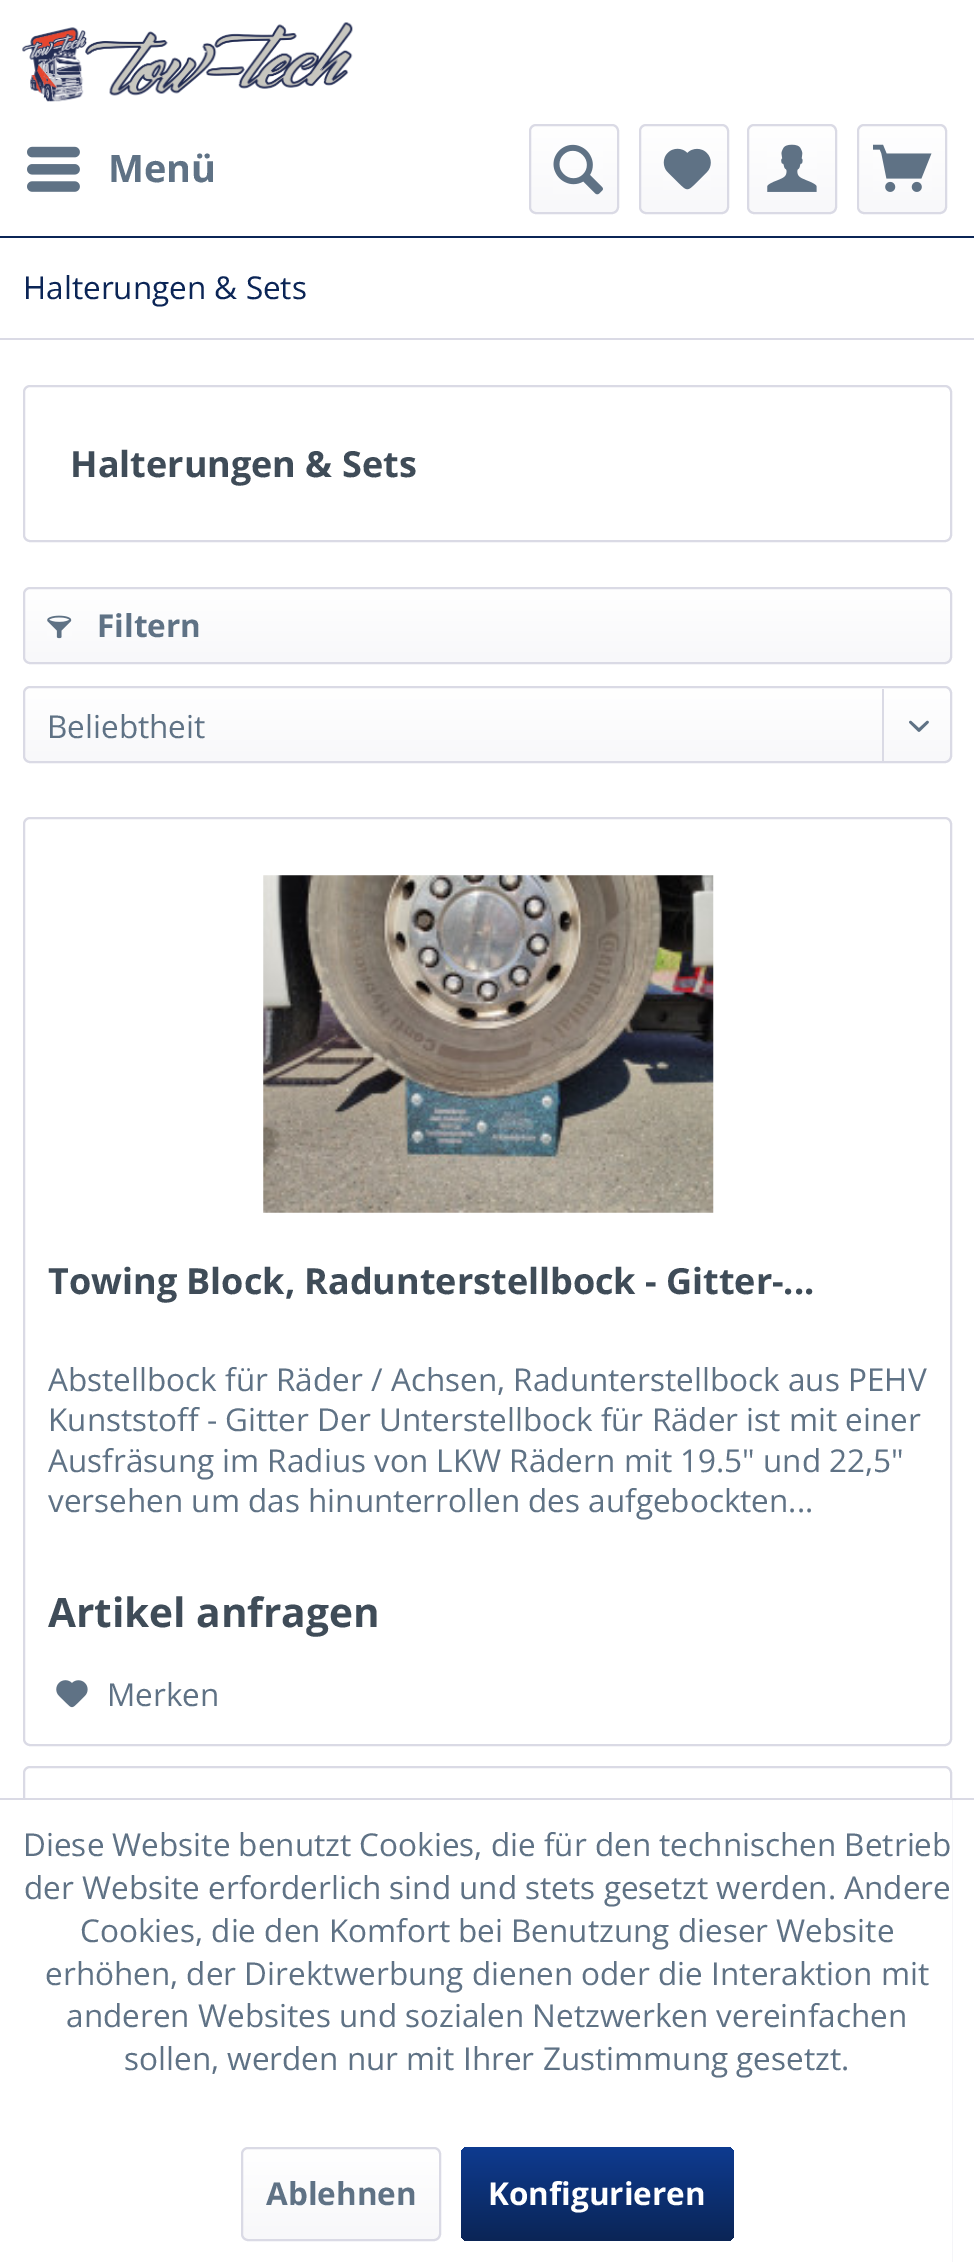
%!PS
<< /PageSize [974 2262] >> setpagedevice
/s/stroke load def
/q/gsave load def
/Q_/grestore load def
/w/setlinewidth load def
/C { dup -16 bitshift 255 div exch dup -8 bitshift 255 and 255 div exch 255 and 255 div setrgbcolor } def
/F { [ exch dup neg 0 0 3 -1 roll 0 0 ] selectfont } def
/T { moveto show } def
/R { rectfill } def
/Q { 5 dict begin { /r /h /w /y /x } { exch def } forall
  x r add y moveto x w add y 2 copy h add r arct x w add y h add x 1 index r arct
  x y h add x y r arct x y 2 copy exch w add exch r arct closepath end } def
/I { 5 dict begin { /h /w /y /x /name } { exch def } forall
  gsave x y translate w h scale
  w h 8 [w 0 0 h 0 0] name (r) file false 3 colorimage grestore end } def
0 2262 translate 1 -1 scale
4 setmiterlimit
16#FFFFFF C
0 0 974 2262 R
16#0B2556 C
0 236 974 2 R
(1.rgb) 22 22 331 80 I
(2.rgb) 27 146 53 46 I
/OpenSans-Bold 38 F
16#5F7285 C
(Menü) 108 182 T
q 531 126 86 86 5 Q clip newpath
<< /ShadingType 2 /ColorSpace /DeviceRGB /Coords [574 126 574 212] /Extend [true true] /Function << /FunctionType 2 /Domain [0 1] /C0 [1 1 1] /C1 [.973 .973 .98] /N 1 >> >> shfill Q_
16#DADAE5 C
2 w
530 125 88 88 6 Q s
(3.rgb) 553 144 50 51 I
q 641 126 86 86 5 Q clip newpath
<< /ShadingType 2 /ColorSpace /DeviceRGB /Coords [684 126 684 212] /Extend [true true] /Function << /FunctionType 2 /Domain [0 1] /C0 [1 1 1] /C1 [.973 .973 .98] /N 1 >> >> shfill Q_
640 125 88 88 6 Q s
(4.rgb) 663 148 48 42 I
q 749 126 86 86 5 Q clip newpath
<< /ShadingType 2 /ColorSpace /DeviceRGB /Coords [792 126 792 212] /Extend [true true] /Function << /FunctionType 2 /Domain [0 1] /C0 [1 1 1] /C1 [.973 .973 .98] /N 1 >> >> shfill Q_
748 125 88 88 6 Q s
(5.rgb) 767 144 50 48 I
q 860 126 85 86 5 Q clip newpath
<< /ShadingType 2 /ColorSpace /DeviceRGB /Coords [902 126 902 212] /Extend [true true] /Function << /FunctionType 2 /Domain [0 1] /C0 [1 1 1] /C1 [.973 .973 .98] /N 1 >> >> shfill Q_
858 125 88 88 6 Q s
(6.rgb) 873 144 59 48 I
0 338 974 2 R
/OpenSans-Regular 31.5 F
16#0B2556 C
(Halterungen & Sets) 23 299 T
16#DADAE5 C
24 386 927 155 6 Q s
/OpenSans-Bold 36 F
16#3F4C58 C
(Halterungen & Sets) 70 477 T
q 25 590 925 72 5 Q clip newpath
<< /ShadingType 2 /ColorSpace /DeviceRGB /Coords [487 590 487 662] /Extend [true true] /Function << /FunctionType 2 /Domain [0 1] /C0 [1 1 1] /C1 [.973 .973 .98] /N 1 >> >> shfill Q_
16#DADAE5 C
24 588 927 75 6 Q s
(7.rgb) 47 615 25 24 I
/OpenSans-Bold 31.5 F
16#5F7285 C
(Filtern) 97 637 T
q 25 689 925 72 5 Q clip newpath
<< /ShadingType 2 /ColorSpace /DeviceRGB /Coords [487 689 487 761] /Extend [true true] /Function << /FunctionType 2 /Domain [0 1] /C0 [1 1 1] /C1 [.973 .973 .98] /N 1 >> >> shfill Q_
16#DADAE5 C
24 687 927 75 6 Q s
/OpenSans-Regular 31.5 F
16#5F7285 C
(Beliebtheit) 47 738 T
16#DADAE5 C
882 689 2 74 R
(8.rgb) 909 720 20 12 I
24 818 927 927 6 Q s
(9.rgb) 263 875 451 338 I
/OpenSans-Bold 36 F
16#3F4C58 C
(Towing Block, Radunterstellbock - Gitter-...) 48 1294 T
/OpenSans-Regular 31.5 F
16#5F7285 C
(Abstellbock für Räder / Achsen, Radunterstellbock aus PEHV) 48 1391 T
(Kunststoff - Gitter Der Unterstellbock für Räder ist mit einer) 48 1431 T
(Ausfräsung im Radius von LKW Rädern mit 19.5" und 22,5") 48 1472 T
(versehen um das hinunterrollen des aufgebockten...) 48 1512 T
/OpenSans-Bold 40.5 F
16#3F4C58 C
(Artikel anfragen) 48 1627 T
(10.rgb) 56 1680 32 28 I
/OpenSans-Regular 31.5 F
16#5F7285 C
(Merken) 107 1706 T
16#DADAE5 C
24 1767 927 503 6 Q s
16#FFFFFF C
23 1800 929 462 R
16#DADAE5 C
0 1798 974 2 R
16#5F7285 C
(Diese Website benutzt Cookies, die für den technischen Betrieb) 23 1856 T
(der Website erforderlich sind und stets gesetzt werden. Andere) 24 1899 T
(Cookies, die den Komfort bei Benutzung dieser Website) 80 1942 T
(erhöhen, der Direktwerbung dienen oder die Interaktion mit) 45 1985 T
(anderen Websites und sozialen Netzwerken vereinfachen) 66 2027 T
(sollen, werden nur mit Ihrer Zustimmung gesetzt.) 124 2070 T
q 243 2149 196 90 5 Q clip newpath
<< /ShadingType 2 /ColorSpace /DeviceRGB /Coords [341 2149 341 2239] /Extend [true true] /Function << /FunctionType 2 /Domain [0 1] /C0 [1 1 1] /C1 [.973 .973 .98] /N 1 >> >> shfill Q_
16#DADAE5 C
242 2148 198 92 6 Q s
/OpenSans-Bold 31.5 F
16#5F7285 C
(Ablehnen) 266 2205 T
q 461 2147 273 94 7 Q clip newpath
<< /ShadingType 2 /ColorSpace /DeviceRGB /Coords [597 2147 597 2241] /Extend [true true] /Function << /FunctionType 2 /Domain [0 1] /C0 [.055 .231 .565] /C1 [.043 .145 .337] /N 1 >> >> shfill Q_
16#FFFFFF C
(Konfigurieren) 488 2205 T
showpage
